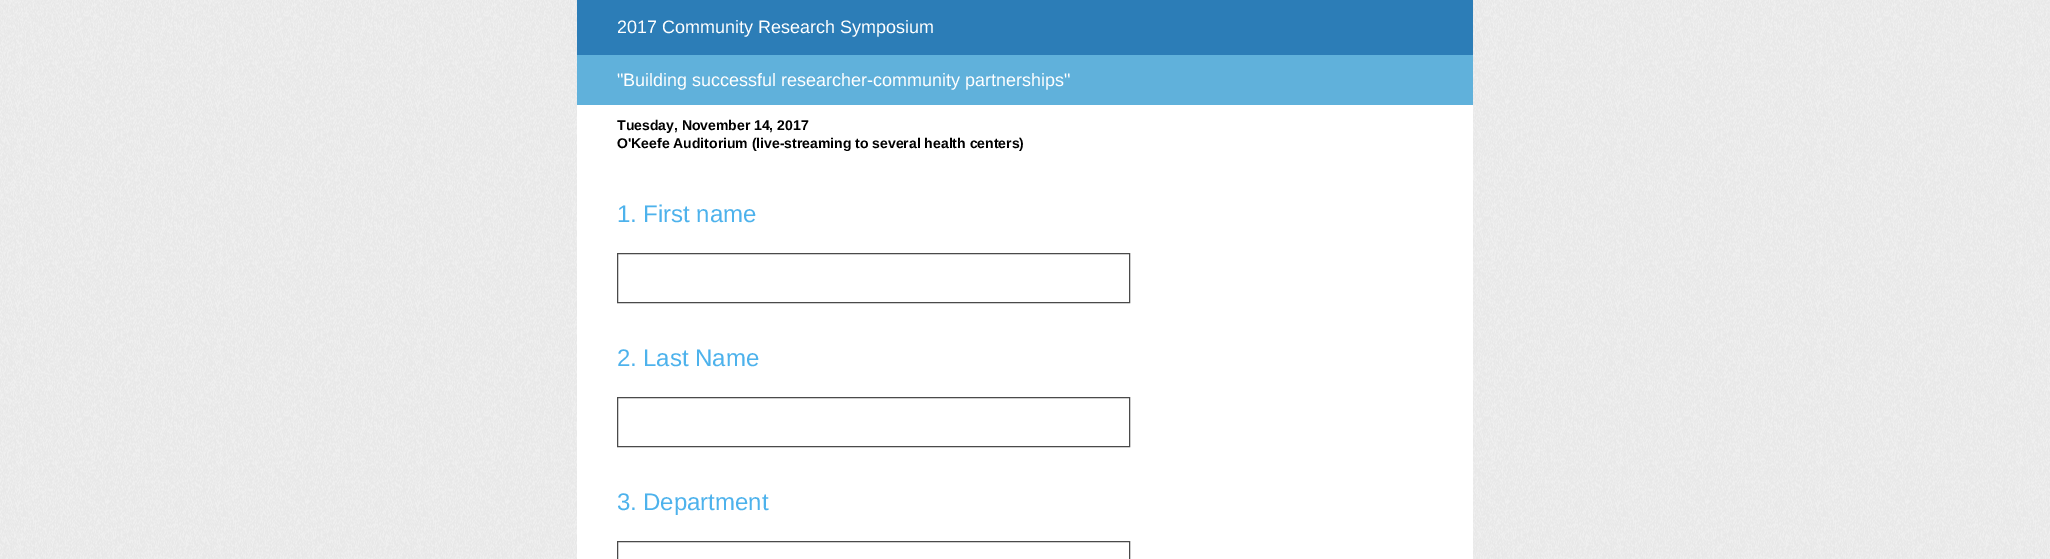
%!PS
<< /PageSize [2050 559] >> setpagedevice
/C { dup -16 bitshift 255 div exch dup -8 bitshift 255 and 255 div exch 255 and 255 div setrgbcolor } def
/F { [ exch dup neg 0 0 3 -1 roll 0 0 ] selectfont } def
/T { moveto show } def
/R { rectfill } def
/I { 5 dict begin { /h /w /y /x /name } { exch def } forall
  gsave x y translate w h scale
  w h 8 [w 0 0 h 0 0] name (r) file false 3 colorimage grestore end } def
0 559 translate 1 -1 scale
4 setmiterlimit
16#FFFFFF C
0 0 2050 559 R
(1.rgb) 0 0 2050 559 I
16#2C7DB7 C
577 0 896 55 R
/LiberationSans-Regular 18 F
16#FFFFFF C
(2017 Community Research Symposium) 617 33 T
577 105 896 454 R
16#60B1DB C
577 55 896 50 R
16#FFFFFF C
("Building successful researcher-community partnerships") 617 86 T
/LiberationSans-Bold 14 F
16#000000 C
(Tuesday, November 14, 2017) 617 130 T
(O'Keefe Auditorium \(live-streaming to several health centers\)) 617 148 T
/LiberationSans-Regular 24 F
16#4DB2EC C
(1.) 617 222 T
(First name) 643 222 T
16#4A4A4A C
617.5 253.5 512 49 rectstroke
16#4DB2EC C
(2.) 617 366 T
(Last Name) 643 366 T
16#4A4A4A C
617.5 397.5 512 49 rectstroke
16#4DB2EC C
(3.) 617 510 T
(Department) 643 510 T
16#4A4A4A C
617.5 541.5 512 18 rectstroke
showpage
